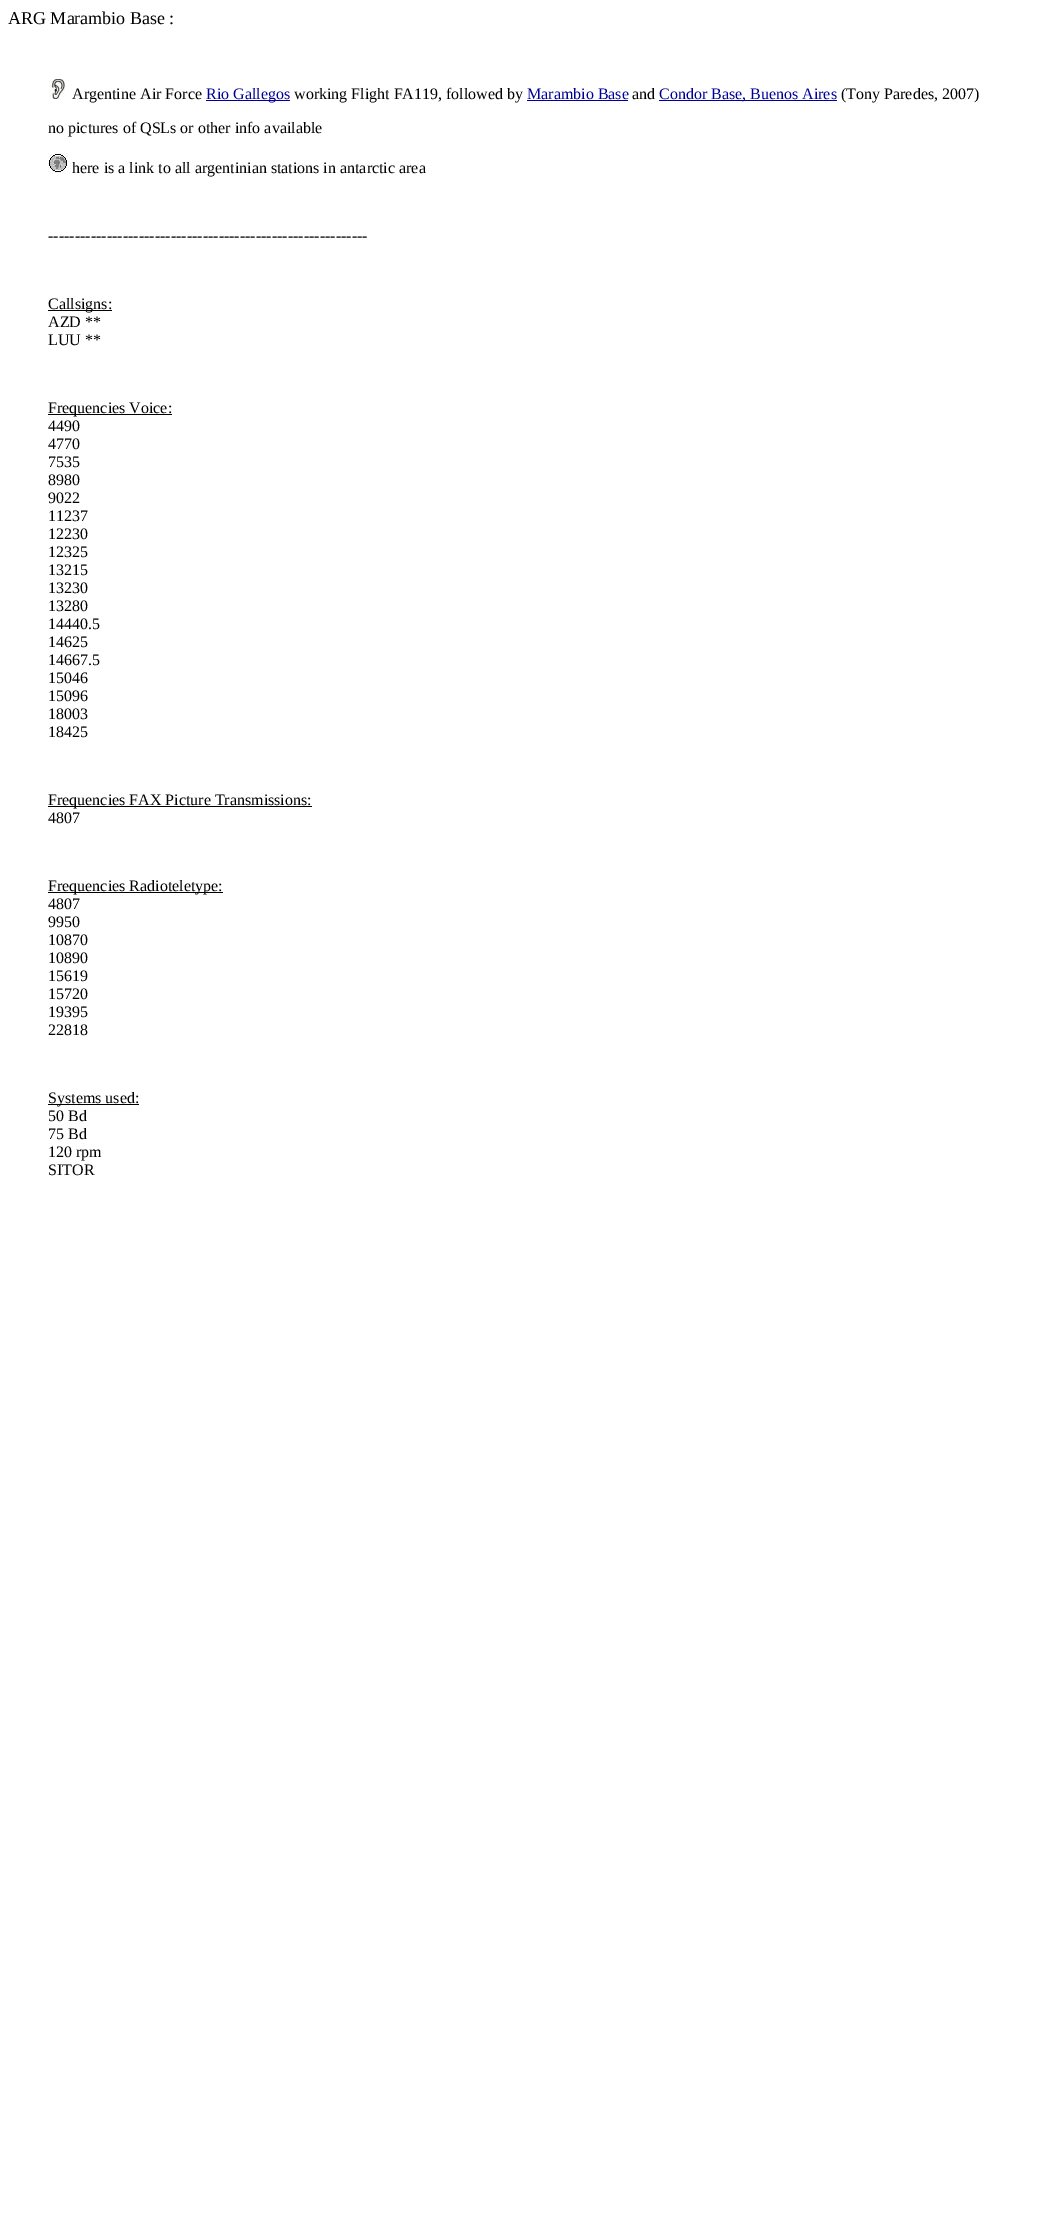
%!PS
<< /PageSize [1064 2237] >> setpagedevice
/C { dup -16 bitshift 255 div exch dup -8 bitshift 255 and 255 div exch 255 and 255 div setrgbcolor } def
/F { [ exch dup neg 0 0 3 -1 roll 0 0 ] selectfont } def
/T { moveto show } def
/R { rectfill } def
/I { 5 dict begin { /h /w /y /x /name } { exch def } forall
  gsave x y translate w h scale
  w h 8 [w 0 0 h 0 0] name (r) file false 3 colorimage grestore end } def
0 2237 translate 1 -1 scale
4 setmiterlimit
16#FFFFFF C
0 0 1064 2237 R
/LiberationSerif-Regular 18 F
16#000000 C
(ARG Marambio Base :) 8 24 T
(1.rgb) 48 79 19 20 I
/LiberationSerif-Regular 16 F
(Argentine Air Force) 72 99 T
16#000099 C
206 100 84 1 R
(Rio Gallegos) 206 99 T
16#000000 C
(working Flight FA119, followed by) 294 99 T
16#000099 C
(Marambio Base) 527 99 T
527 100 101 1 R
16#000000 C
(and) 632 99 T
16#000099 C
659 100 178 1 R
(Condor Base, Buenos Aires) 659 99 T
16#000000 C
(\(Tony Paredes, 2007\)) 841 99 T
(no pictures of QSLs or other info available) 48 133 T
(2.rgb) 48 153 20 20 I
(here is a link to all argentinian stations in antarctic area) 72 173 T
(------------------------------------------------------------) 48 241 T
48 310 64 1 R
(Callsigns:) 48 309 T
(AZD **) 48 327 T
(LUU **) 48 345 T
48 414 124 1 R
(Frequencies Voice:) 48 413 T
(4490) 48 431 T
(4770) 48 449 T
(7535) 48 467 T
(8980) 48 485 T
(9022) 48 503 T
(11237) 48 521 T
(12230) 48 539 T
(12325) 48 557 T
(13215) 48 575 T
(13230) 48 593 T
(13280) 48 611 T
(14440.5) 48 629 T
(14625) 48 647 T
(14667.5) 48 665 T
(15046) 48 683 T
(15096) 48 701 T
(18003) 48 719 T
(18425) 48 737 T
48 806 264 1 R
(Frequencies FAX Picture Transmissions:) 48 805 T
(4807) 48 823 T
48 892 175 1 R
(Frequencies Radioteletype:) 48 891 T
(4807) 48 909 T
(9950) 48 927 T
(10870) 48 945 T
(10890) 48 963 T
(15619) 48 981 T
(15720) 48 999 T
(19395) 48 1017 T
(22818) 48 1035 T
48 1104 91 1 R
(Systems used:) 48 1103 T
(50 Bd) 48 1121 T
(75 Bd) 48 1139 T
(120 rpm) 48 1157 T
(SITOR) 48 1175 T
showpage
